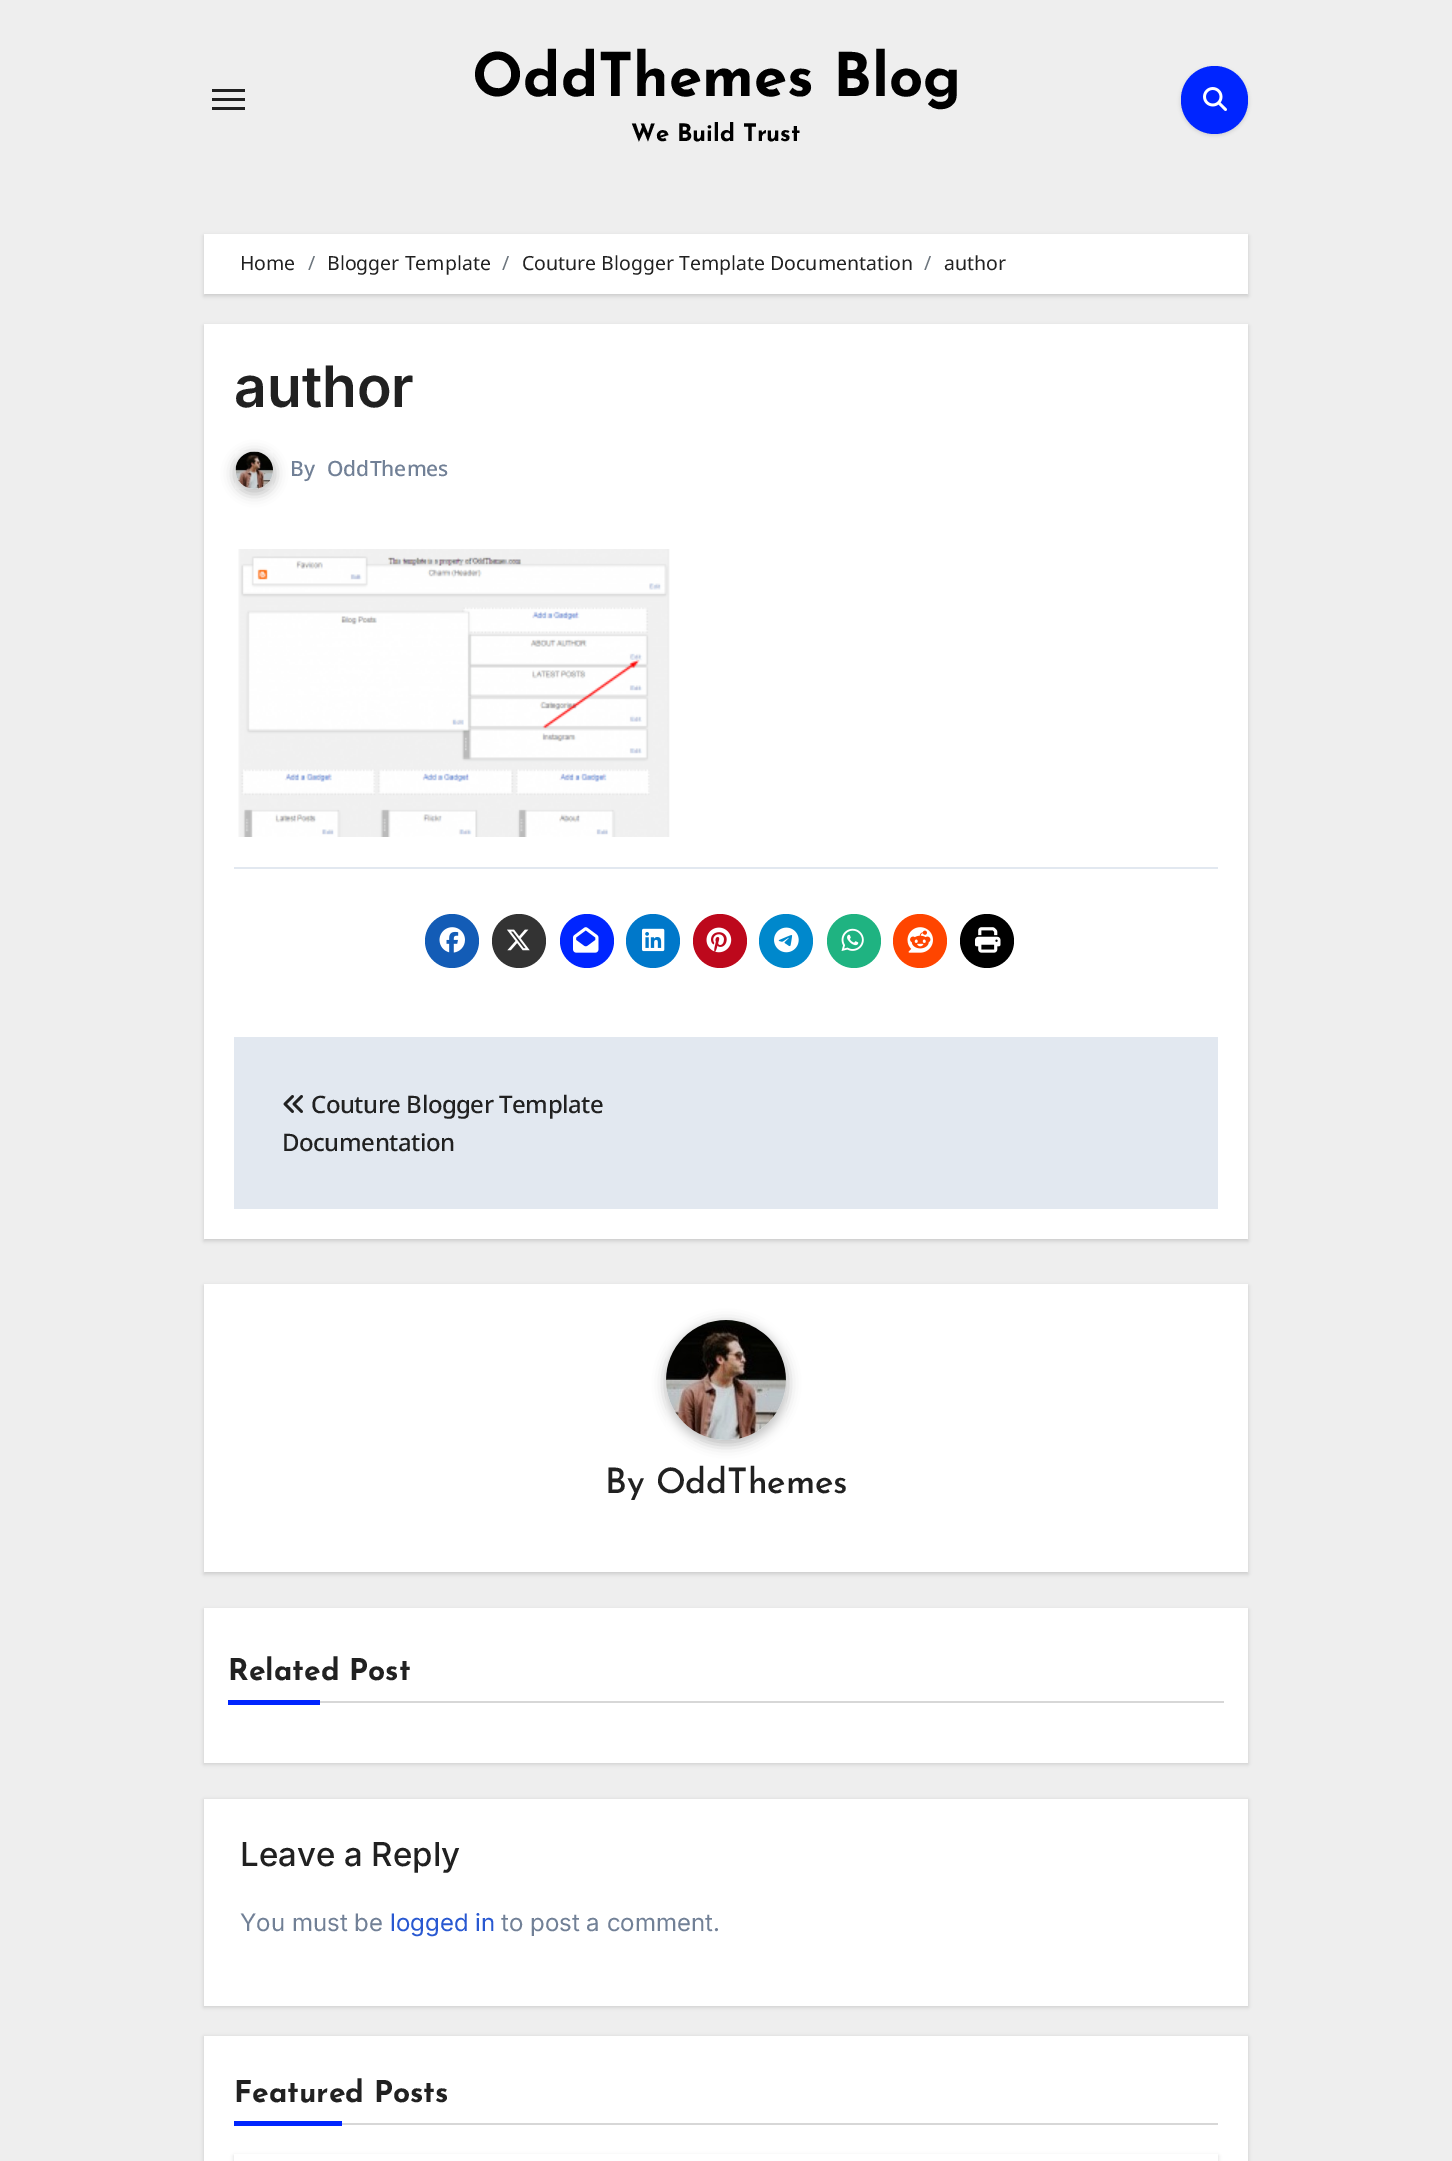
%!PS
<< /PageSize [1452 2161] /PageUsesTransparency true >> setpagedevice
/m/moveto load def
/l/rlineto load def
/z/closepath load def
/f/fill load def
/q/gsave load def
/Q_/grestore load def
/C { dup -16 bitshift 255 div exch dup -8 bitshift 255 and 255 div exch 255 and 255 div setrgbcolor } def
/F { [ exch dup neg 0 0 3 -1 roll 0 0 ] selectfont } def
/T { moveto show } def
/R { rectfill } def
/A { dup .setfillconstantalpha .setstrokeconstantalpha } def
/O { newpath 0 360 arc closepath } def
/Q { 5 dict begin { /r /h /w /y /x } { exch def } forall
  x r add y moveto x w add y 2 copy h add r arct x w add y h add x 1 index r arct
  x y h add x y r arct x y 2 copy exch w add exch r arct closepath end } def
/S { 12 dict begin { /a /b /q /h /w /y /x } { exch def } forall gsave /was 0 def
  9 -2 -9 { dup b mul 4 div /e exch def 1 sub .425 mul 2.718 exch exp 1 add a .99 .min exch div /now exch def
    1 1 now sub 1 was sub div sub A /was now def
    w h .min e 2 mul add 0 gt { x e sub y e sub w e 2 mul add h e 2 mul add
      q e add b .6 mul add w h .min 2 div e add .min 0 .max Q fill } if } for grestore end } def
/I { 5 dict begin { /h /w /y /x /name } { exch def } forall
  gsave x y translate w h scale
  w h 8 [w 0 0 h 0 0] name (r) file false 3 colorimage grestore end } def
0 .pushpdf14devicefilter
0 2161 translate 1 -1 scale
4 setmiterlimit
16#EEEEEE C
0 0 1452 2161 R
16#212121 C
212 89 33 3 R
212 98 33 3 R
212 107 33 3 R
/JosefinSans-Bold 60 F
16#000000 C
(OddThemes Blog) 472 96 T
/JosefinSans-Bold 24 F
(We Build Trust) 631 141 T
1181 68 67 67 33.5 2 .15 S
16#0025FF C
1181 66 67 68 33.5 Q f
(1.rgb) 1203 87 24 24 I
16#000000 C
204 236 1044 60 0 2 .15 S
16#FFFFFF C
204 234 1044 60 R
/NotoSans-Regular 19.5 F
16#212121 C
(Home) 240 270 T
16#6C757D C
(/) 308 270 T
16#212121 C
(Blogger Template) 327 270 T
16#6C757D C
(/) 502 270 T
16#212121 C
(Couture Blogger Template Documentation) 522 270 T
16#6C757D C
(/) 924 270 T
16#212121 C
(author) 944 270 T
16#000000 C
204 326 1044 915 0 2 .15 S
16#FFFFFF C
204 324 1044 915 R
/Inter-SemiBold 57 F
16#212121 C
(author) 234 407 T
234 453 41 41 20.5 6 .3 S
(2.rgb) 235 451 38 38 I
/NotoSans-Medium 21 F
16#718096 C
(By) 290 476 T
(OddThemes) 327 476 T
(3.rgb) 238 549 432 288 I
16#E2E8F0 C
234 867 984 2 R
16#135CB6 C
452 941 27 O f
(4.rgb) 439 927 26 26 I
16#333333 C
519 941 27 O f
(5.rgb) 507 929 23 22 I
16#0025FF C
587 941 27 O f
(6.rgb) 573 927 26 26 I
16#0078CA C
653 941 27 O f
(7.rgb) 642 928 23 24 I
16#BD081C C
720 941 27 O f
(8.rgb) 706 927 26 26 I
16#0088CC C
786 941 27 O f
(9.rgb) 774 927 25 26 I
16#1FB381 C
854 941 27 O f
(10.rgb) 841 928 23 23 I
16#FF4500 C
920 941 27 O f
(11.rgb) 907 927 26 26 I
16#000000 C
987 941 27 O f
(12.rgb) 975 927 26 26 I
16#E2E8F0 C
234 1037 984 172 R
(13.rgb) 283 1095 20 18 I
/NotoSans-Medium 24 F
16#212121 C
311 1113 m -.5 0 (Couture Blogger Template) ashow
282 1151 m -.5 0 (Documentation) ashow
16#000000 C
204 1286 1044 288 0 2 .15 S
16#FFFFFF C
204 1284 1044 288 R
16#212121 C
665 1322 123 123 61.5 6 .3 S
(14.rgb) 666 1320 120 120 I
/JosefinSans-Medium 35 F
(By OddThemes) 605 1493 T
16#000000 C
204 1610 1044 154 0 2 .15 S
16#FFFFFF C
204 1608 1044 155 R
16#D7D7D7 C
320 1701 904 2 R
/JosefinSans-Bold 30 F
16#212121 C
(Related Post) 228 1680 T
16#0025FF C
228 1700 92 5 R
16#000000 C
204 1800 1044 207 0 2 .15 S
16#FFFFFF C
204 1799 1044 207 R
/Inter-Medium 33 F
16#212121 C
(Leave a Reply) 240 1866 T
/Inter-Regular 24 F
16#718096 C
(You must be) 240 1931 T
16#2858D1 C
(logged in) 390 1931 T
16#718096 C
(to post a comment.) 501 1931 T
16#000000 C
204 2037 1044 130 0 2 .15 S
16#FFFFFF C
204 2036 1044 125 R
16#D7D7D7 C
342 2123 876 2 R
/JosefinSans-Bold 30 F
16#212121 C
(Featured Posts) 234 2102 T
16#0025FF C
234 2121 108 5 R
q
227 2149 m 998 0 l 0 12 l -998 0 l z 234 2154 m 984 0 l 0 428 l -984 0 l z eoclip newpath
16#000000 C
234 2156 984 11 0 2 .15 S
Q_
.poppdf14devicefilter showpage
